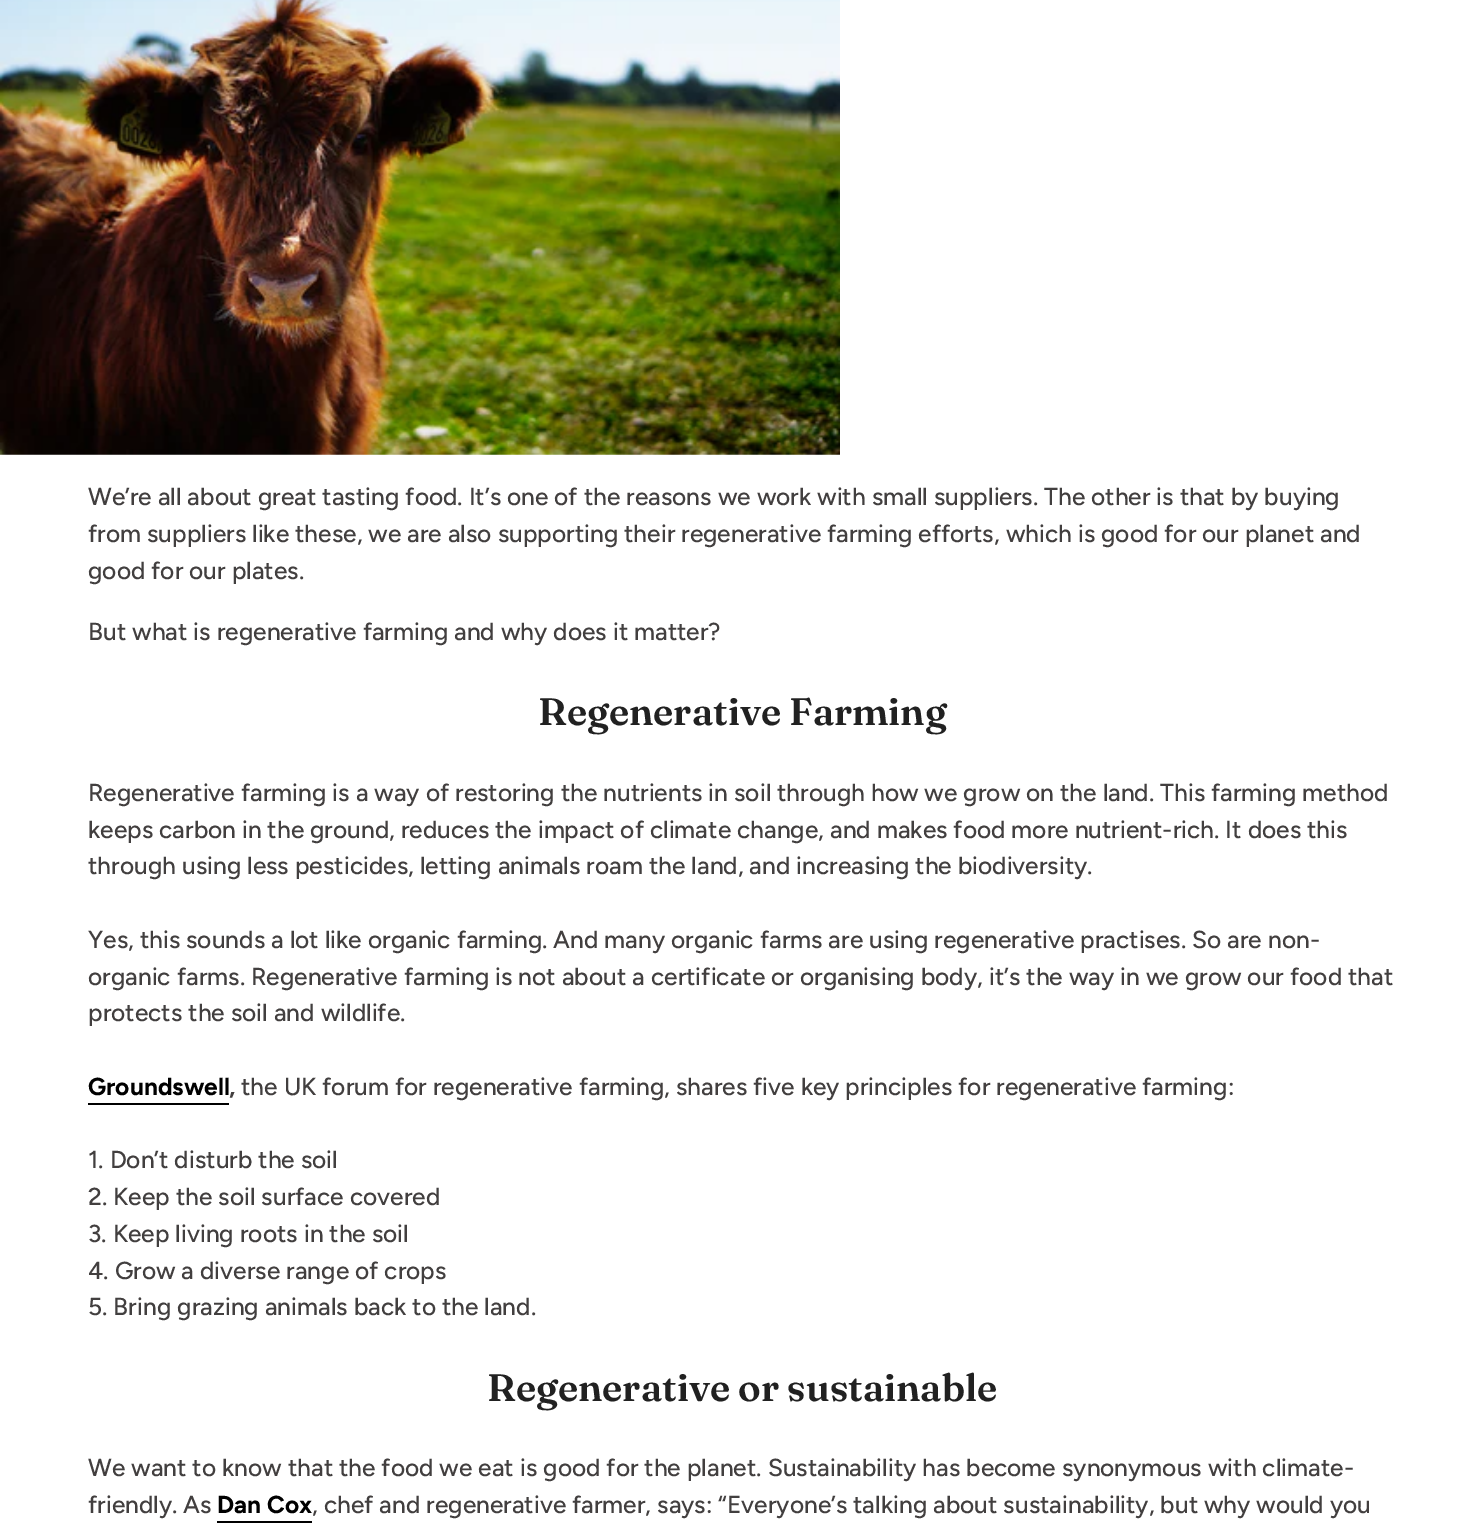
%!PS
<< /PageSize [1483 1528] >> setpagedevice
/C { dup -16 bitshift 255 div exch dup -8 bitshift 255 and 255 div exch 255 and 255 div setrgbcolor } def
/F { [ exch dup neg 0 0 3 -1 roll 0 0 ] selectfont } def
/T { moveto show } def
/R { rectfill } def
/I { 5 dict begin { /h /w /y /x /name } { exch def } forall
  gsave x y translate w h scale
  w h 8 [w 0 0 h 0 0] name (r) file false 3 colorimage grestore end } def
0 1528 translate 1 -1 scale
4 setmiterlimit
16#FFFFFF C
0 0 1483 1528 R
(1.rgb) 0 0 840 455 I
/Figtree-Medium 24.5 F
16#423F3F C
(We’re all about great tasting food. It’s one of the reasons we work with small suppliers. The other is that by buying) 88 505 T
(from suppliers like these, we are also supporting their regenerative farming efforts, which is good for our planet and) 88 542 T
(good for our plates.) 88 579 T
(But what is regenerative farming and why does it matter?) 88 640 T
/Fraunces-SemiBold 38.25 F
16#212121 C
(Regenerative Farming) 538 725 T
/Figtree-Medium 24.5 F
16#423F3F C
(Regenerative farming is a way of restoring the nutrients in soil through how we grow on the land. This farming method) 88 801 T
(keeps carbon in the ground, reduces the impact of climate change, and makes food more nutrient-rich. It does this) 88 838 T
(through using less pesticides, letting animals roam the land, and increasing the biodiversity.) 88 874 T
(Yes, this sounds a lot like organic farming. And many organic farms are using regenerative practises. So are non-) 88 948 T
(organic farms. Regenerative farming is not about a certificate or organising body, it’s the way in we grow our food that) 88 985 T
(protects the soil and wildlife.) 88 1021 T
/Figtree-Bold 24.5 F
16#000000 C
(Groundswell) 88 1095 T
16#423F3F C
(,) 229 1095 T
16#000000 C
88 1103 141 2 R
/Figtree-Medium 24.5 F
16#423F3F C
(the UK forum for regenerative farming, shares five key principles for regenerative farming:) 241 1095 T
(1. Don’t disturb the soil) 88 1168 T
(2. Keep the soil surface covered) 88 1205 T
(3. Keep living roots in the soil) 88 1242 T
(4. Grow a diverse range of crops) 88 1279 T
(5. Bring grazing animals back to the land.) 88 1315 T
/Fraunces-SemiBold 38.25 F
16#212121 C
(Regenerative or sustainable) 487 1401 T
/Figtree-Medium 24.5 F
16#423F3F C
(We want to know that the food we eat is good for the planet. Sustainability has become synonymous with climate-) 88 1476 T
(friendly. As) 88 1513 T
/Figtree-Bold 24.5 F
16#000000 C
(Dan Cox) 217 1513 T
217 1521 95 2 R
/Figtree-Medium 24.5 F
16#423F3F C
(, chef and regenerative farmer, says: “Everyone’s talking about sustainability, but why would you) 312 1513 T
showpage
